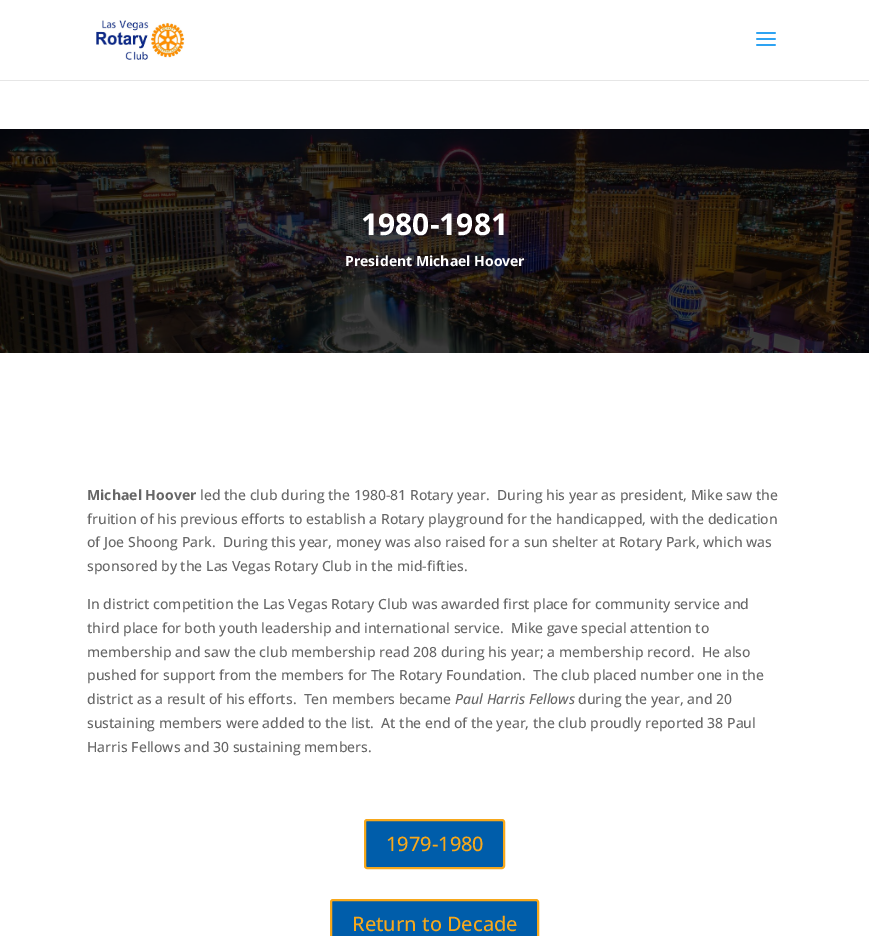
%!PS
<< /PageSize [869 936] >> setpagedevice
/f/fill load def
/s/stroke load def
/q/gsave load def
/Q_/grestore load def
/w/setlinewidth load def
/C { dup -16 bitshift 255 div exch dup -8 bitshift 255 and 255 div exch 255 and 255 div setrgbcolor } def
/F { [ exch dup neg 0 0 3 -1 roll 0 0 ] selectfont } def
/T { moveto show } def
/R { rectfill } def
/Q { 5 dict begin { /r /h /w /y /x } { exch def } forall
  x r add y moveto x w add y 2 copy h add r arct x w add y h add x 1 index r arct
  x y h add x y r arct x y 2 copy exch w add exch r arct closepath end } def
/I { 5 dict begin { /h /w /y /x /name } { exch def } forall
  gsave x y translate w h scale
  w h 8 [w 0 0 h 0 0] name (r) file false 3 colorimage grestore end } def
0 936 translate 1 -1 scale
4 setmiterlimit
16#FFFFFF C
0 0 869 936 R
16#E6E6E6 C
0 80 869 1 R
(1.rgb) 96 20 89 40 I
(2.rgb) 756 32 20 14 I
(3.rgb) 0 129 869 224 I
/OpenSans-Bold 30 F
16#FFFFFF C
(1980-1981) 361 235 T
/OpenSans-Bold 14 F
(President Michael Hoover) 345 266 T
16#666666 C
(Michael Hoover) 87 500 T
/OpenSans-Medium 14 F
(led the club during the 1980-81 Rotary year.  During his year as president, Mike saw the) 200 500 T
(fruition of his previous efforts to establish a Rotary playground for the handicapped, with the dedication) 87 524 T
(of Joe Shoong Park.  During this year, money was also raised for a sun shelter at Rotary Park, which was) 87 547 T
(sponsored by the Las Vegas Rotary Club in the mid-fifties.) 87 571 T
(In district competition the Las Vegas Rotary Club was awarded first place for community service and) 87 609 T
(third place for both youth leadership and international service.  Mike gave special attention to) 87 633 T
(membership and saw the club membership read 208 during his year; a membership record.  He also) 87 657 T
(pushed for support from the members for The Rotary Foundation.  The club placed number one in the) 87 680 T
(district as a result of his efforts.  Ten members became) 87 704 T
/OpenSans-MediumItalic 14 F
(Paul Harris Fellows) 455 704 T
/OpenSans-Medium 14 F
(during the year, and 20) 578 704 T
(sustaining members were added to the list.  At the end of the year, the club proudly reported 38 Paul) 87 728 T
(Harris Fellows and 30 sustaining members.) 87 752 T
16#005DAA C
365 820 139 48 2 Q q f Q_
16#F7A81B C
2 w
s
/OpenSans-Medium 20 F
(1979-1980) 386 851 T
16#005DAA C
331 900 207 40 2 Q q f Q_
16#F7A81B C
s
(Return to Decade) 352 931 T
showpage
